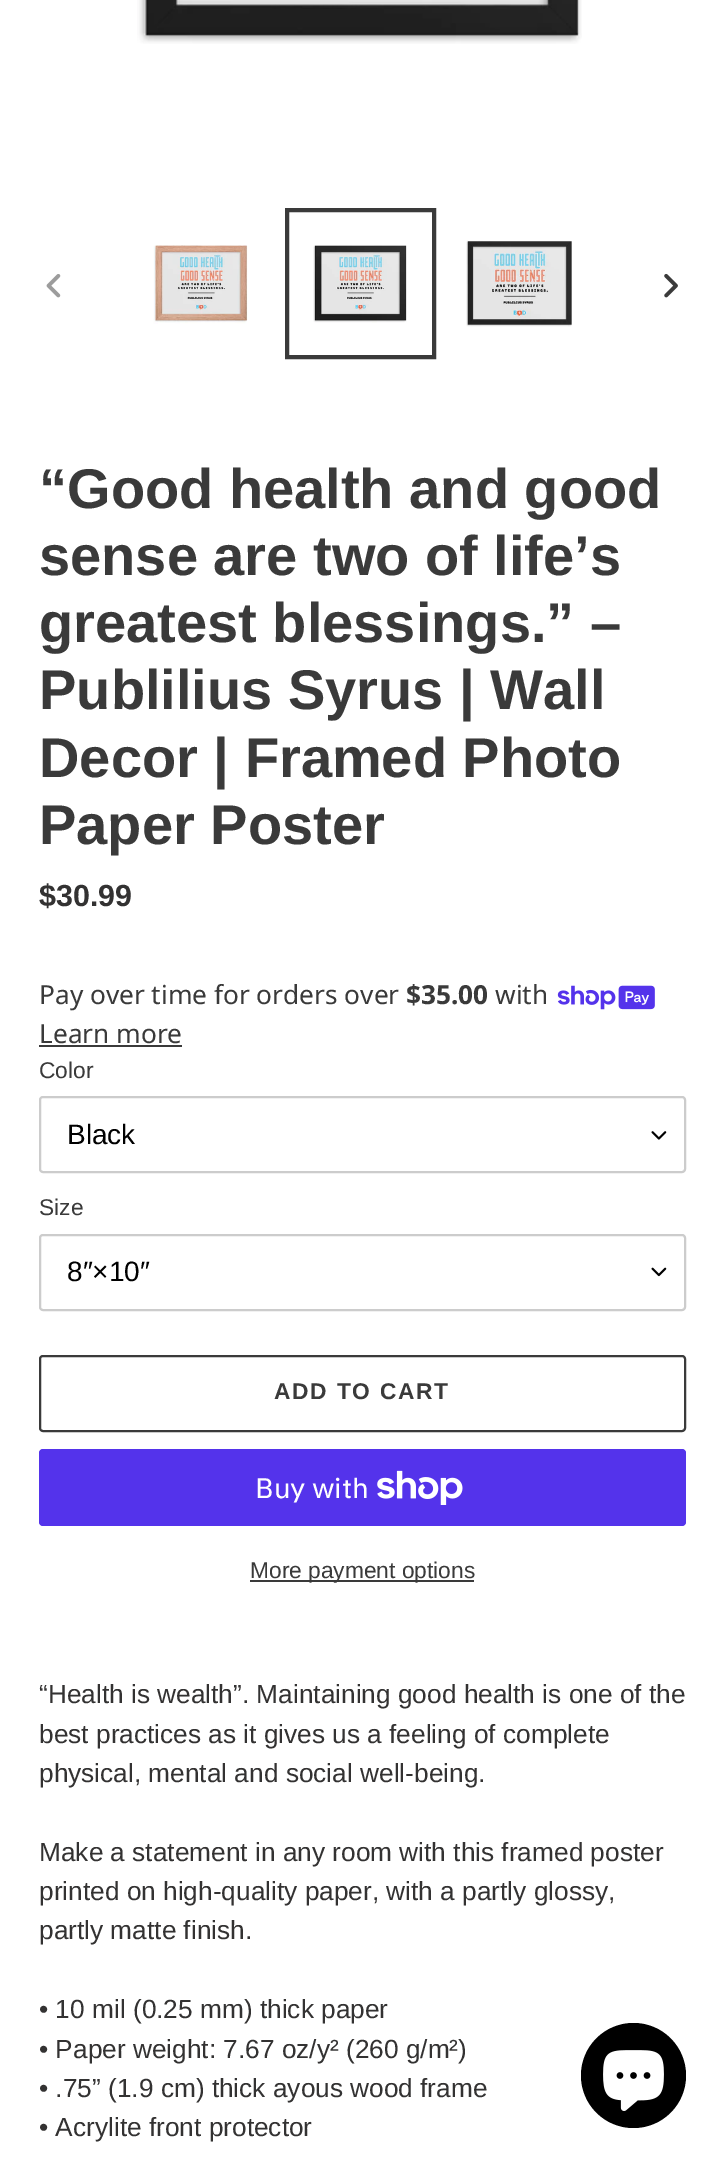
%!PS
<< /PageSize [724 2164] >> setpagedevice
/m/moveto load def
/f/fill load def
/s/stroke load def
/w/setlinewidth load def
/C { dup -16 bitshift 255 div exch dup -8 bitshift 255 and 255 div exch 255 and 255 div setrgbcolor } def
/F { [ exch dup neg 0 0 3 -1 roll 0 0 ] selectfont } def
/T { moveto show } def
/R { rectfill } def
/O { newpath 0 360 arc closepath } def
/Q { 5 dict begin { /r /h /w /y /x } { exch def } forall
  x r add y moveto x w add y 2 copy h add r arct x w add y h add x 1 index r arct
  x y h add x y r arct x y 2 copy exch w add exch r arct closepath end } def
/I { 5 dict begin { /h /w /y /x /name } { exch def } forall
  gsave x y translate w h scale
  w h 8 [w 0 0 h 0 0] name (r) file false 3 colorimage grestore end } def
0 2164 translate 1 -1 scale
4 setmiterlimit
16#FFFFFF C
0 0 724 2164 R
(1.rgb) 137 0 445 44 I
(2.rgb) 46 274 15 24 I
(3.rgb) 153 245 95 79 I
16#3A3A3A C
4 w
287 210 147 147 rectstroke
(4.rgb) 313 245 94 78 I
(5.rgb) 466 240 106 87 I
(6.rgb) 664 273 14 25 I
/LiberationSans-Bold 56 F
(“Good health and good) 39 508 T
(sense are two of life’s) 39 575 T
(greatest blessings.” –) 39 642 T
(Publilius Syrus | Wall) 39 709 T
(Decor | Framed Photo) 39 777 T
(Paper Poster) 39 844 T
/LiberationSans-Bold 30.5 F
16#333232 C
($30.99) 39 906 T
/NotoSans-Regular 26.25 F
16#3A3A3A C
(Pay over time for orders over) 39 1004 T
/NotoSans-Bold 26.25 F
($35.00) 406 1004 T
/NotoSans-Regular 26.25 F
(with) 495 1004 T
(7.rgb) 557 985 98 25 I
(Learn more) 39 1043 T
39 1045 143 2 R
/LiberationSans-Regular 22.75 F
(Color) 39 1078 T
(8.rgb) 651 1131 16 9 I
16#CCCCCC C
2 w
40 1097 645 75 3 Q s
/LiberationSans-Regular 28 F
16#000000 C
(Black) 67 1144 T
/LiberationSans-Regular 22.75 F
16#3A3A3A C
(Size) 39 1215 T
(9.rgb) 651 1267 16 10 I
16#CCCCCC C
40 1235 645 75 3 Q s
/LiberationSans-Regular 28 F
16#000000 C
(8″×10″) 67 1281 T
16#3A3A3A C
40 1356 645 75 3 Q s
/LiberationSans-Bold 22.75 F
274 1399 m 1.75 0 (ADD TO CART) ashow
16#5433EB C
39 1449 647 77 4 Q f
/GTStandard-Regular 28 F
16#FFFFFF C
(Buy with) 255 1498 T
(10.rgb) 377 1470 86 35 I
16#3A3A3A C
250 1580 224 2 R
/LiberationSans-Regular 22.75 F
(More payment options) 250 1578 T
/LiberationSans-Regular 26.25 F
16#333232 C
(“Health is wealth”. Maintaining good health is one of the) 39 1703 T
(best practices as it gives us a feeling of complete) 39 1743 T
(physical, mental and social well-being.) 39 1782 T
(Make a statement in any room with this framed poster) 39 1861 T
(printed on high-quality paper, with a partly glossy,) 39 1900 T
(partly matte finish.) 39 1939 T
(• 10 mil \(0.25 mm\) thick paper) 39 2018 T
(• Paper weight: 7.67 oz/y² \(260 g/m²\)) 39 2058 T
(• .75” \(1.9 cm\) thick ayous wood frame) 39 2097 T
(• Acrylite front protector) 39 2136 T
16#000000 C
633.5 2075.5 52.5 O f
(11.rgb) 603 2050 61 61 I
showpage
